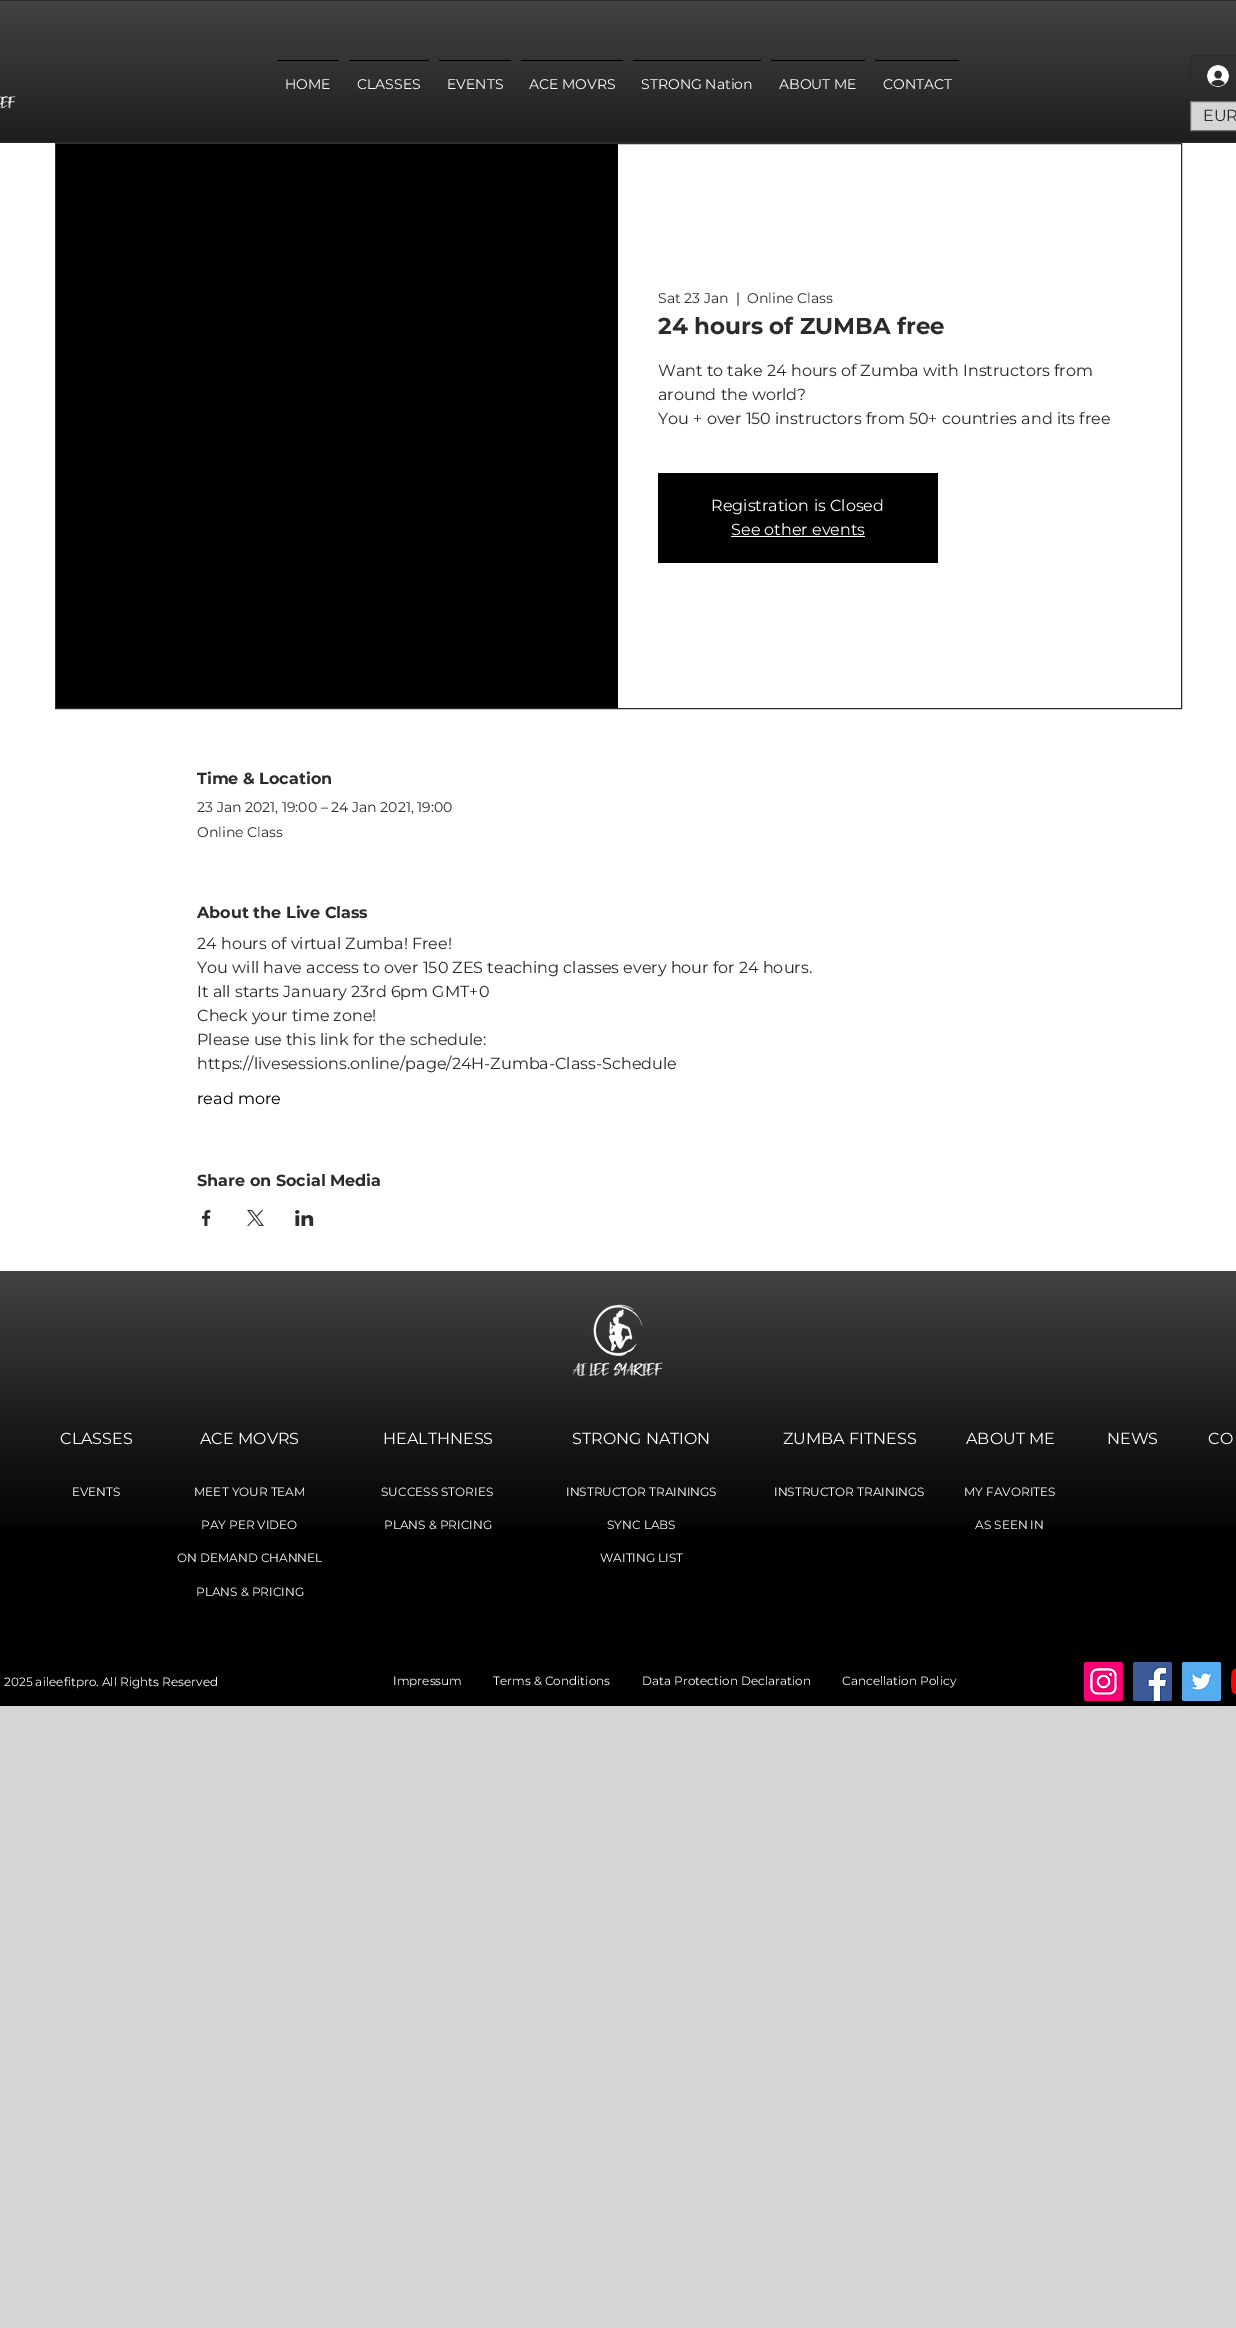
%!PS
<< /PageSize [1236 2328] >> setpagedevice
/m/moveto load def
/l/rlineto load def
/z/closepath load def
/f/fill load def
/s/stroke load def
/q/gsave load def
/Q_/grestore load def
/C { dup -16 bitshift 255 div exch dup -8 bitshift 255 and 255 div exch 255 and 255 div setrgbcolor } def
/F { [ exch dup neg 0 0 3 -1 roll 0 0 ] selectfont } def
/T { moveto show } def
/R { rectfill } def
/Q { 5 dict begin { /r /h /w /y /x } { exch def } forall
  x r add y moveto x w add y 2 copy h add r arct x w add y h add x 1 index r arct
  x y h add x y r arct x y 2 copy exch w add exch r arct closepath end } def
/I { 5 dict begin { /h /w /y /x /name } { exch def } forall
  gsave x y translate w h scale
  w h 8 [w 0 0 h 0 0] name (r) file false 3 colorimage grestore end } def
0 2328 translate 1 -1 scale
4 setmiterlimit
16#D5D5D5 C
0 0 1236 2328 R
16#000000 C
0 1 1236 141 R
(1.rgb) 0 1 1236 141 I
16#2F2E2E C
0 0 1236 1 R
0 142 1236 1 R
16#000000 C
277 60 62 1 R
/Montserrat-Regular 14 F
16#FFFFFF C
(HOME) 285 89 T
16#000000 C
349 60 80 1 R
16#FFFFFF C
(CLASSES) 357 89 T
16#000000 C
439 60 72 1 R
16#FFFFFF C
(EVENTS) 447 89 T
16#000000 C
521 60 102 1 R
16#FFFFFF C
(ACE MOVRS) 529 89 T
16#000000 C
633 60 128 1 R
16#FFFFFF C
(STRONG Nation) 641 89 T
16#000000 C
771 60 94 1 R
16#FFFFFF C
(ABOUT ME) 779 89 T
16#000000 C
875 60 84 1 R
16#FFFFFF C
(CONTACT) 883 89 T
16#2B2B2B C
1190.5 55.5 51 40 4.5 Q s
(2.rgb) 1207 65 22 22 I
(3.rgb) 0 96 16 13 I
16#D5D5D5 C
1190.5 101.5 m 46 0 l 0 29 l -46 0 l z q f Q_
16#6F6F6F C
s
/Montserrat-Regular 16 F
16#2B2B2B C
(EUR) 1203 121 T
16#FFFFFF C
0 143 1236 1128 R
16#2B2B2B C
55.5 143.5 1126 565 rectstroke
16#000000 C
56 144 562 564 R
/Montserrat-Regular 14 F
16#2B2B2B C
(Sat 23 Jan) 658 303 T
(|) 736 303 T
(Online Class) 747 303 T
/Montserrat-Bold 23 F
(24 hours of ZUMBA free) 658 334 T
/Montserrat-Regular 16 F
(Want to take 24 hours of Zumba with Instructors from) 658 376 T
(around the world?) 658 400 T
(You + over 150 instructors from 50+ countries and its free) 658 424 T
16#000000 C
658 473 280 90 R
16#FFFFFF C
(Registration is Closed) 711 511 T
(See other events) 731 535 T
731 536 134 1 R
/Montserrat-Bold 16 F
16#2B2B2B C
(Time & Location) 197 784 T
/Montserrat-Regular 14 F
(23 Jan 2021, 19:00 – 24 Jan 2021, 19:00) 197 812 T
(Online Class) 197 837 T
/Montserrat-Bold 16 F
(About the Live Class) 197 918 T
/Montserrat-Regular 16 F
(24 hours of virtual Zumba! Free!) 197 949 T
(You will have access to over 150 ZES teaching classes every hour for 24 hours.) 197 973 T
(It all starts January 23rd 6pm GMT+0) 197 997 T
(Check your time zone!) 197 1021 T
(Please use this link for the schedule:) 197 1045 T
(https://livesessions.online/page/24H-Zumba-Class-Schedule) 197 1069 T
16#000000 C
(read more) 197 1104 T
/Montserrat-Bold 16 F
16#2B2B2B C
(Share on Social Media) 197 1186 T
(4.rgb) 202 1210 9 16 I
(5.rgb) 247 1210 17 16 I
(6.rgb) 295 1210 19 16 I
16#000000 C
0 1271 1236 435 R
(7.rgb) 0 1271 1236 254 I
(8.rgb) 572 1304 91 73 I
/Montserrat-Regular 16 F
16#FFFFFF C
(CLASSES) 60 1444 T
(ACE MOVRS) 200 1444 T
(HEALTHNESS) 383 1444 T
(STRONG NATION) 572 1444 T
(ZUMBA FITNESS) 783 1444 T
(ABOUT ME) 966 1444 T
(NEWS) 1107 1444 T
(CO) 1208 1444 T
/Montserrat-Regular 12 F
(EVENTS) 72 1496 T
(MEET YOUR TEAM) 194 1496 T
(SUCCESS STORIES) 381 1496 T
(INSTRUCTOR TRAININGS) 566 1496 T
(INSTRUCTOR TRAININGS) 774 1496 T
(MY FAVORITES) 964 1496 T
(PAY PER VIDEO) 201 1529 T
(PLANS & PRICING) 384 1529 T
(SYNC LABS) 607 1529 T
(AS SEEN IN) 975 1529 T
(ON DEMAND CHANNEL) 177 1562 T
(WAITING LIST) 600 1562 T
(PLANS & PRICING) 196 1596 T
(2025 aileefitpro. All Rights Reserved) 4 1686 T
(Impressum) 393 1685 T
(Terms & Conditions) 493 1685 T
(Data Protection Declaration) 642 1685 T
(Cancellation Policy) 842 1685 T
(9.rgb) 1084 1662 39 39 I
(10.rgb) 1133 1662 39 39 I
(11.rgb) 1182 1662 39 39 I
(12.rgb) 1231 1668 5 27 I
showpage
